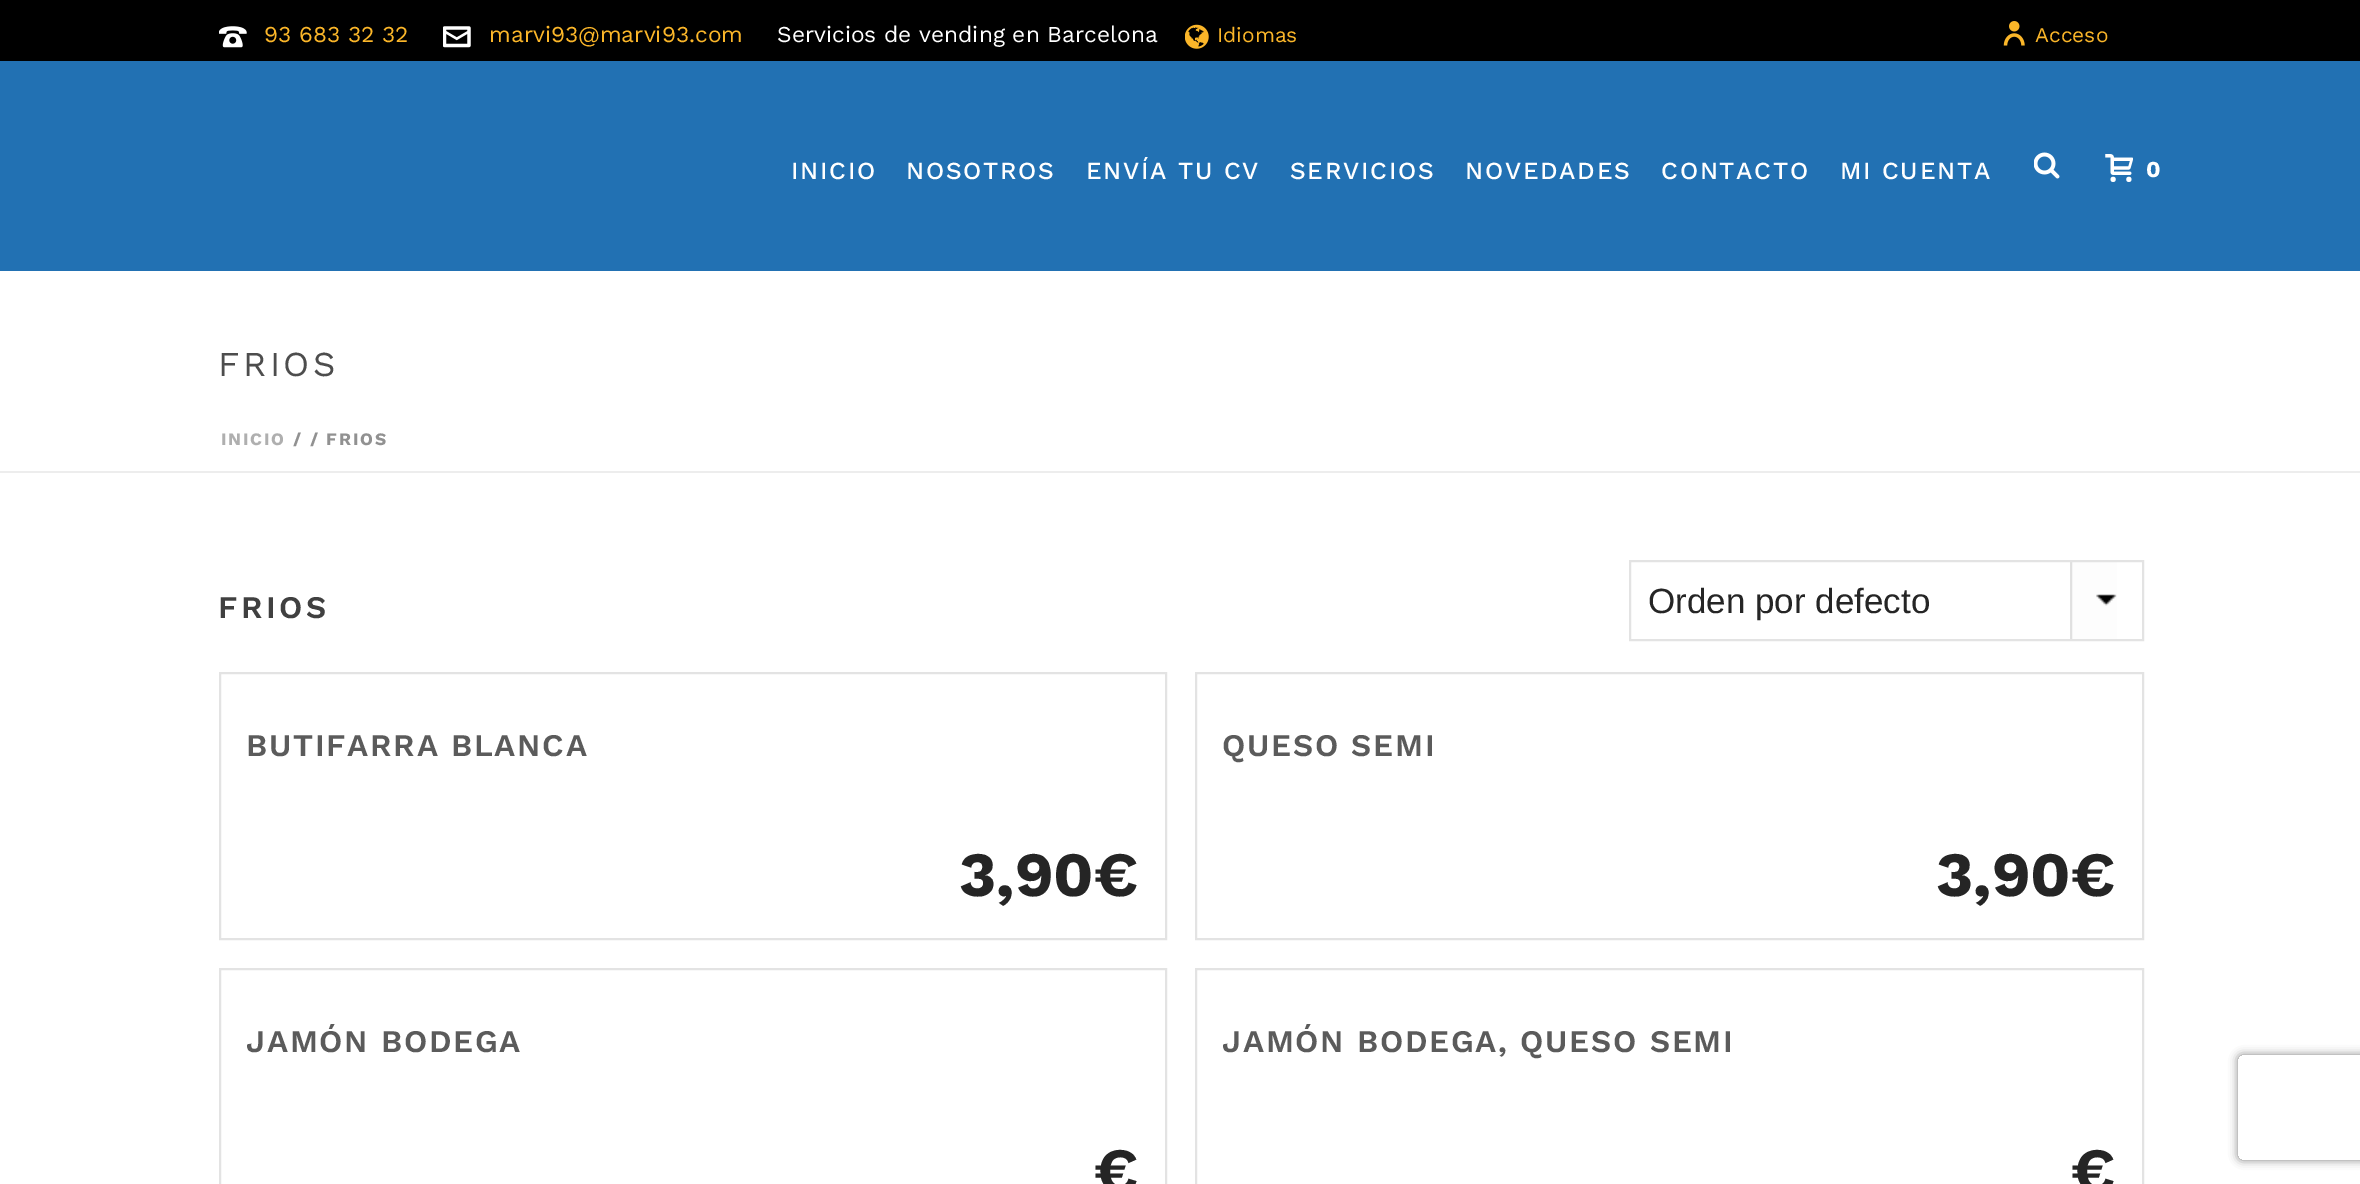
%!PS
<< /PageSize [2360 1184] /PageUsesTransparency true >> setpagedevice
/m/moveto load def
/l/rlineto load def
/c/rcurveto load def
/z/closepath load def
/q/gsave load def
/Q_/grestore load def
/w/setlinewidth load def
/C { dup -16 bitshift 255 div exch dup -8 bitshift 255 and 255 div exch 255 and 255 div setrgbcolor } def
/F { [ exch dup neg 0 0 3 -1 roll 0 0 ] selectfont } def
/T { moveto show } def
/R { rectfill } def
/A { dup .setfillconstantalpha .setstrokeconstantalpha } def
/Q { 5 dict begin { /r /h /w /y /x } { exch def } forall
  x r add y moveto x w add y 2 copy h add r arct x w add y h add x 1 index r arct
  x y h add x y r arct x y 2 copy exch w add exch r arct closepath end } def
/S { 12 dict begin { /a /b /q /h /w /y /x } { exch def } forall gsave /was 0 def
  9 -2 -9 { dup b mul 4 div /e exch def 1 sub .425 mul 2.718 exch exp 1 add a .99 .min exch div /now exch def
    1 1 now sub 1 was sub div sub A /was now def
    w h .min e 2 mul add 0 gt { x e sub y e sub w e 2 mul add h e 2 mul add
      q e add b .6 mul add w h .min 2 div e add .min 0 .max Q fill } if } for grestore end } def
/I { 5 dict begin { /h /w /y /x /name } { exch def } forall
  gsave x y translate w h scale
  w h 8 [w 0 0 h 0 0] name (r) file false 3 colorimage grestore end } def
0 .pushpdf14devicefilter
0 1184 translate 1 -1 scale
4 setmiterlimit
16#FFFFFF C
0 0 2360 1184 R
16#EDEDED C
0 471 2360 2 R
16#000000 C
0 0 2360 61 R
(1.rgb) 219 26 28 22 I
/WorkSans-Regular 22.75 F
16#FBB629 C
(93 683 32 32) 264 42 T
(2.rgb) 443 26 28 22 I
(marvi93@marvi93.com) 489 42 T
16#FFFFFF C
(Servicios de vending en Barcelona) 777 42 T
(3.rgb) 1185 24 24 25 I
/WorkSans-Regular 21 F
16#FBB629 C
(Idiomas) 1217 42 T
(4.rgb) 2003 21 22 25 I
(Acceso) 2035 42 T
16#2271B3 C
0 61 2360 210 R
/WorkSans-Medium 24.5 F
16#FFFFFF C
791 179 m 1.75 0 (INICIO) ashow
906 179 m 1.75 0 (NOSOTROS) ashow
1086 179 m 1.75 0 (ENVÍA TU CV) ashow
1290 179 m 1.75 0 (SERVICIOS) ashow
1465 179 m 1.75 0 (NOVEDADES) ashow
1661 179 m 1.75 0 (CONTACTO) ashow
1840 179 m 1.75 0 (MI CUENTA) ashow
(5.rgb) 2034 152 26 27 I
(6.rgb) 2105 154 28 28 I
/WorkSans-Bold 22.75 F
(0) 2146 177 T
/WorkSans-Regular 35 F
16#4D4D4D C
218 376 m 3.5 0 (FRIOS) ashow
/WorkSans-Bold 17.5 F
16#AFAFAF C
221 445 m 1.75 0 (INICIO) ashow
16#919191 C
293 445 m 1.75 0 (/ / FRIOS) ashow
/WorkSans-SemiBold 31.5 F
16#404040 C
218 618 m 3.5 0 (FRIOS) ashow
(7.rgb) 2070 562 47 77 I
16#E3E3E3 C
2 w
1630 561 513 79 rectstroke
/LiberationSans-Regular 35 F
16#252525 C
(Orden por defecto) 1648 613 T
16#E3E3E3 C
220 673 946 266 rectstroke
/WorkSans-SemiBold 31.5 F
16#5B5B5B C
246 756 m 1.75 0 (BUTIFARRA BLANCA) ashow
/WorkSans-Bold 63 F
16#252525 C
(3,90€) 959 896 T
16#E3E3E3 C
1196 673 947 266 rectstroke
/WorkSans-SemiBold 31.5 F
16#5B5B5B C
1222 756 m 1.75 0 (QUESO SEMI) ashow
/WorkSans-Bold 63 F
16#252525 C
(3,90€) 1936 896 T
16#E3E3E3 C
220 969 946 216 rectstroke
/WorkSans-SemiBold 31.5 F
16#5B5B5B C
246 1052 m 1.75 0 (JAMÓN BODEGA) ashow
/WorkSans-Bold 63 F
16#252525 C
(€) 1094 1192 T
16#E3E3E3 C
1196 969 947 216 rectstroke
/WorkSans-SemiBold 31.5 F
16#5B5B5B C
1222 1052 m 1.75 0 (JAMÓN BODEGA, QUESO SEMI) ashow
/WorkSans-Bold 63 F
16#252525 C
(€) 2071 1192 T
q
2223 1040 m 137 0 l 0 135 l -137 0 l z 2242 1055 m 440 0 l 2 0 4 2 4 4 c 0 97 l 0 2 -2 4 -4 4 c -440 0 l -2 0 -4 -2 -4 -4 c 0 -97 l 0 -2 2 -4 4 -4 c z eoclip newpath
16#808080 C
2238 1055 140 105 4 4.5 1 S
Q_
.poppdf14devicefilter showpage
